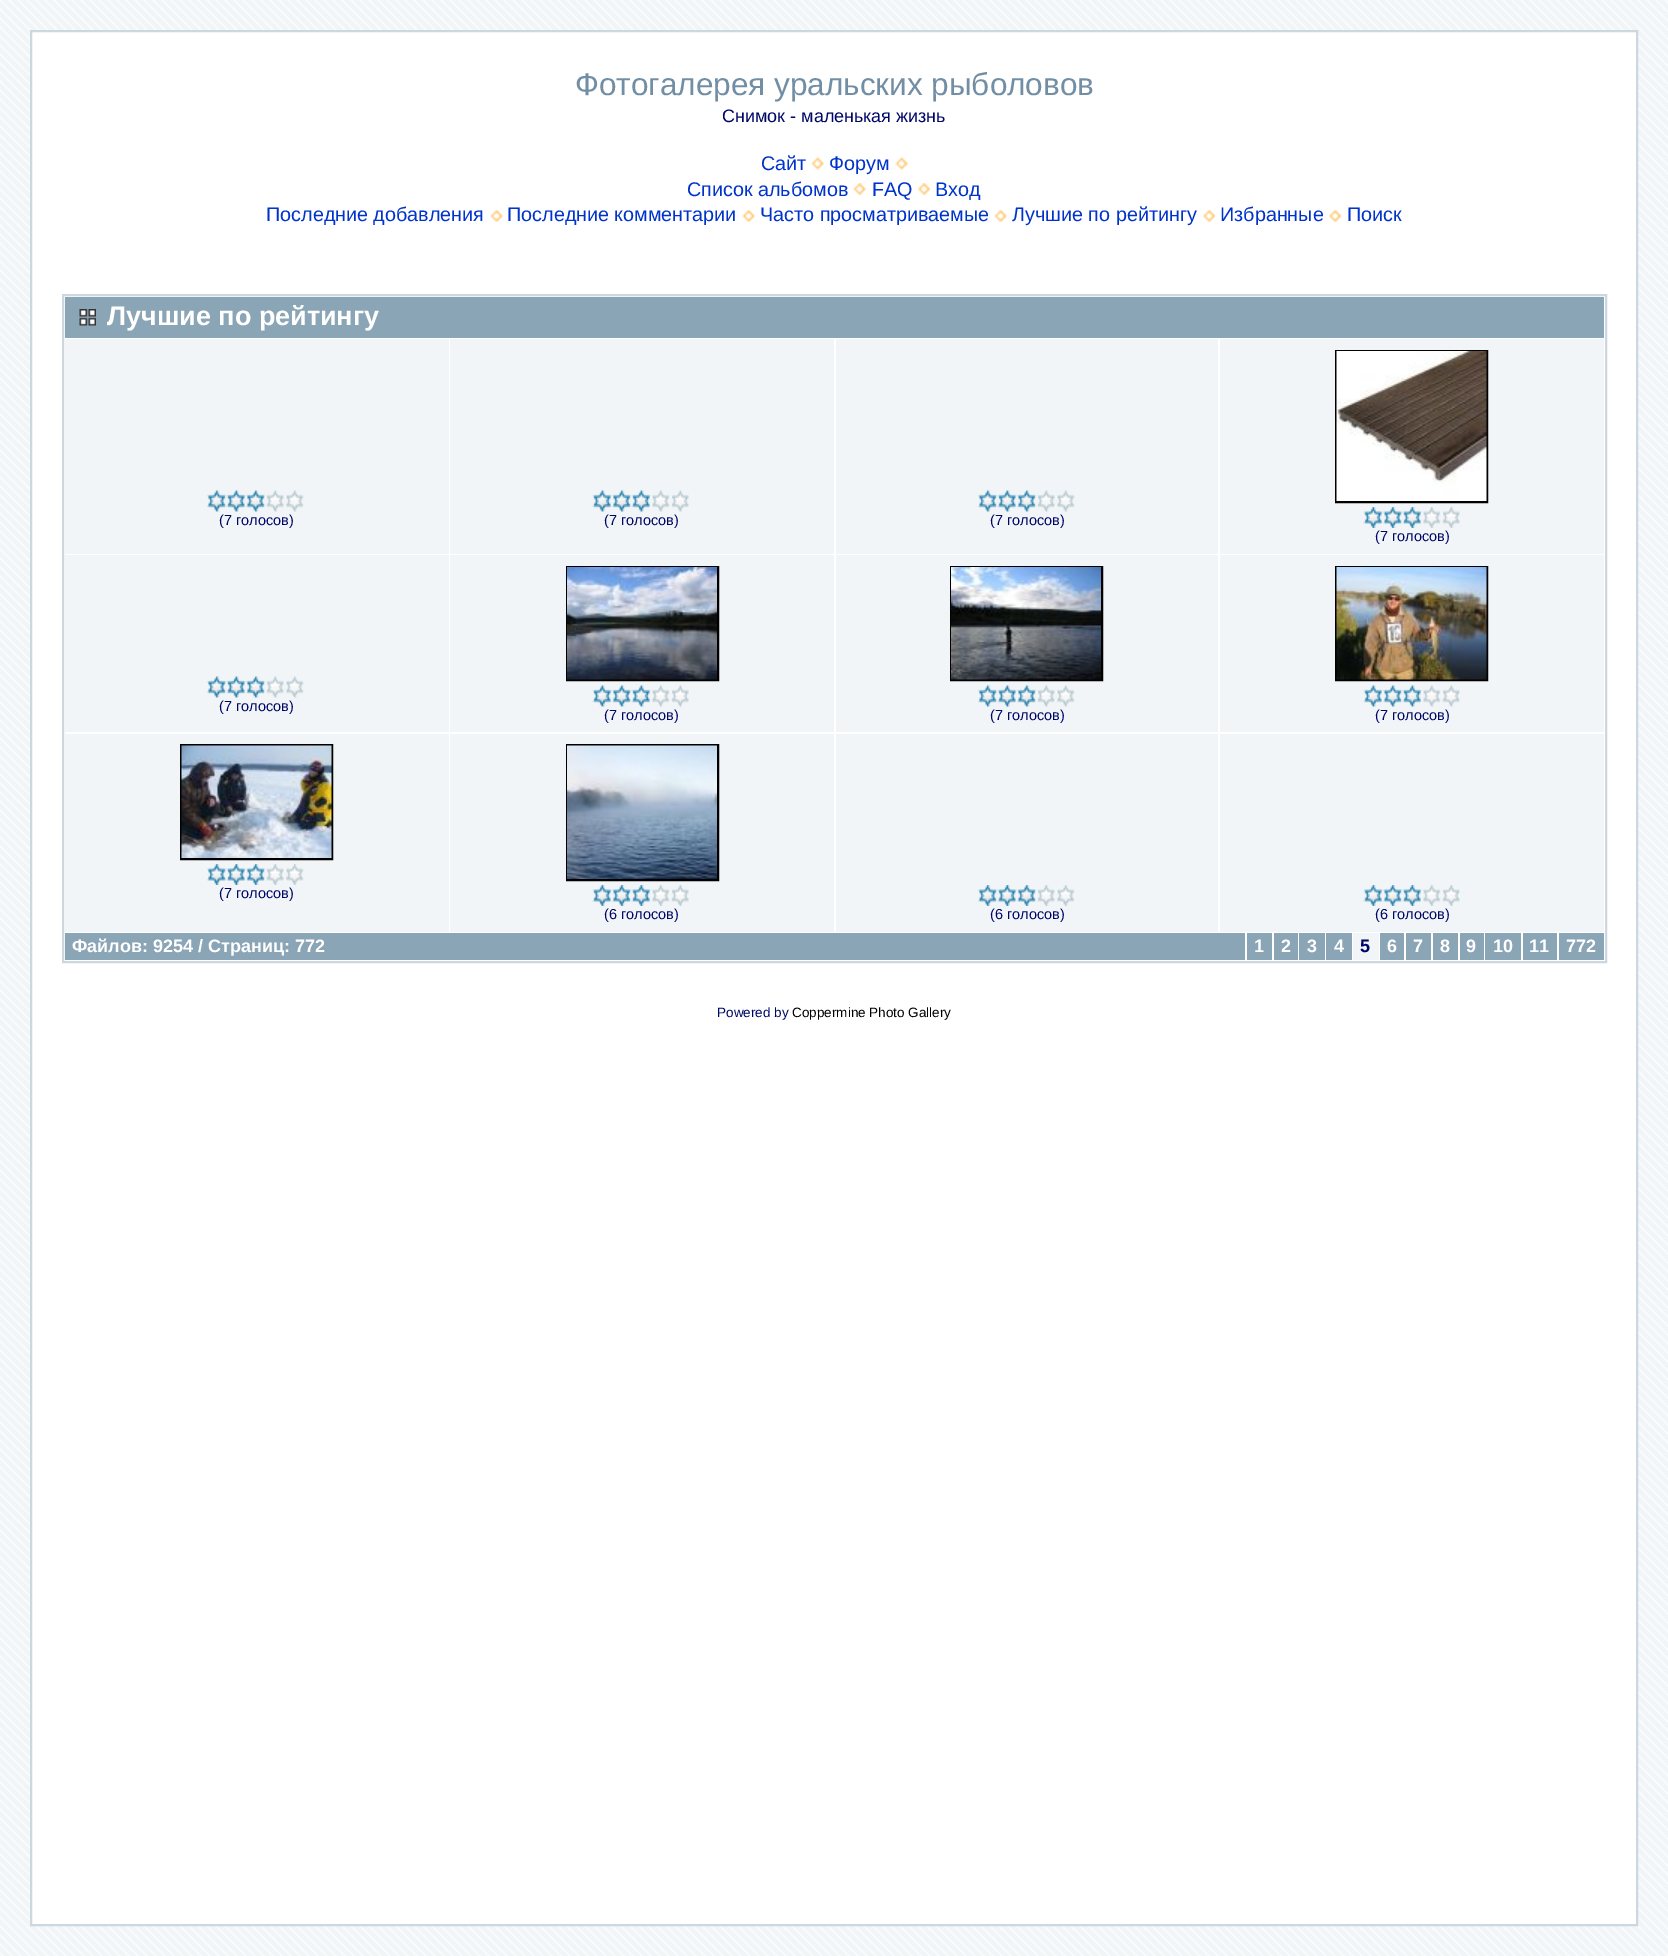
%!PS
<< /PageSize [1668 1956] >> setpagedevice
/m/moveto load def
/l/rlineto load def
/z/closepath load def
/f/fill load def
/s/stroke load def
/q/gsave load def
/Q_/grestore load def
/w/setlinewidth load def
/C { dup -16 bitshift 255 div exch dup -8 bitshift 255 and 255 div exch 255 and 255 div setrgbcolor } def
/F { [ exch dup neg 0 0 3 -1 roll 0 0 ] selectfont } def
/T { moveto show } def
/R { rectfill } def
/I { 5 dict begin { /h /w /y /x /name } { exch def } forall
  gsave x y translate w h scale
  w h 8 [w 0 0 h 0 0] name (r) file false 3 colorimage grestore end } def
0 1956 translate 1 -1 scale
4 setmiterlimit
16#F2F5F7 C
0 0 1668 1956 R
(1.rgb) 0 0 1668 1956 I
16#FFFFFF C
31 31 m 1606 0 l 0 1894 l -1606 0 l z q f Q_
16#CCD7E0 C
2 w
s
/LiberationSans-Regular 31.5 F
16#718EA5 C
(Фотогалерея уральских рыболовов) 575 95 T
/LiberationSans-Regular 18 F
16#000666 C
(Снимок - маленькая жизнь) 722 122 T
/LiberationSans-Regular 19.75 F
16#0033CC C
(Сайт) 761 170 T
(2.rgb) 811 157 13 13 I
(Форум) 829 170 T
(2.rgb) 895 157 13 13 I
(Список альбомов) 687 196 T
(3.rgb) 853 183 13 12 I
(FAQ) 872 196 T
(4.rgb) 918 183 12 12 I
(Вход) 935 196 T
(Последние добавления) 266 221 T
(3.rgb) 490 210 13 12 I
(Последние комментарии) 507 221 T
(5.rgb) 742 210 13 12 I
(Часто просматриваемые) 760 221 T
(3.rgb) 994 210 13 12 I
(Лучшие по рейтингу) 1012 221 T
(6.rgb) 1203 210 12 12 I
(Избранные) 1220 221 T
(6.rgb) 1329 210 12 12 I
(Поиск) 1347 221 T
16#CCD7E0 C
63 295 1543 667 rectstroke
16#8AA5B5 C
65 297 1539 41 R
(7.rgb) 79 309 17 17 I
/LiberationSans-Bold 27 F
16#FFFFFF C
(Лучшие по рейтингу) 107 325 T
16#F2F5F7 C
65 339 384 215 R
(8.rgb) 207 490 97 22 I
/LiberationSans-Regular 14.5 F
16#000666 C
(\(7 голосов\)) 219 525 T
16#F2F5F7 C
450 339 384 215 R
(9.rgb) 592 490 98 22 I
16#000666 C
(\(7 голосов\)) 604 525 T
16#F2F5F7 C
836 339 382 215 R
(8.rgb) 978 490 97 22 I
16#000666 C
(\(7 голосов\)) 990 525 T
16#F2F5F7 C
1220 339 384 215 R
16#000000 C
1336 351 151 151 rectstroke
(10.rgb) 1336 351 151 150 I
(11.rgb) 1363 507 98 21 I
16#000666 C
(\(7 голосов\)) 1375 541 T
16#F2F5F7 C
65 555 384 177 R
(8.rgb) 207 676 97 22 I
16#000666 C
(\(7 голосов\)) 219 711 T
16#F2F5F7 C
450 555 384 177 R
16#000000 C
567 567 151 113 rectstroke
(12.rgb) 567 567 150 113 I
(9.rgb) 592 685 98 22 I
16#000666 C
(\(7 голосов\)) 604 720 T
16#F2F5F7 C
836 555 382 177 R
16#000000 C
951 567 151 113 rectstroke
(13.rgb) 951 567 150 113 I
(8.rgb) 978 685 97 22 I
16#000666 C
(\(7 голосов\)) 990 720 T
16#F2F5F7 C
1220 555 384 177 R
16#000000 C
1336 567 151 113 rectstroke
(14.rgb) 1336 567 151 113 I
(9.rgb) 1363 685 98 22 I
16#000666 C
(\(7 голосов\)) 1375 720 T
16#F2F5F7 C
65 734 384 198 R
16#000000 C
181 745 151 114 rectstroke
(15.rgb) 181 745 151 113 I
(16.rgb) 207 864 97 21 I
16#000666 C
(\(7 голосов\)) 219 898 T
16#F2F5F7 C
450 734 384 198 R
16#000000 C
567 745 151 135 rectstroke
(17.rgb) 567 745 150 134 I
(11.rgb) 592 885 98 21 I
16#000666 C
(\(6 голосов\)) 604 919 T
16#F2F5F7 C
836 734 382 198 R
(16.rgb) 978 885 97 21 I
16#000666 C
(\(6 голосов\)) 990 919 T
16#F2F5F7 C
1220 734 384 198 R
(11.rgb) 1363 885 98 21 I
16#000666 C
(\(6 голосов\)) 1375 919 T
16#8AA5B5 C
65 933 1180 27 R
/LiberationSans-Bold 18 F
16#FFFFFF C
(Файлов: 9254 / Страниц: 772) 72 952 T
16#8AA5B5 C
1247 933 25 27 R
16#FFFFFF C
(1) 1254 952 T
16#8AA5B5 C
1274 933 24 27 R
16#FFFFFF C
(2) 1281 952 T
16#8AA5B5 C
1299 933 26 27 R
16#FFFFFF C
(3) 1307 952 T
16#8AA5B5 C
1326 933 26 27 R
16#FFFFFF C
(4) 1334 952 T
16#F2F5F7 C
1353 933 26 27 R
16#000666 C
(5) 1360 952 T
16#8AA5B5 C
1380 933 24 27 R
16#FFFFFF C
(6) 1387 952 T
16#8AA5B5 C
1406 933 25 27 R
16#FFFFFF C
(7) 1413 952 T
16#8AA5B5 C
1433 933 25 27 R
16#FFFFFF C
(8) 1440 952 T
16#8AA5B5 C
1460 933 24 27 R
16#FFFFFF C
(9) 1466 952 T
16#8AA5B5 C
1485 933 36 27 R
16#FFFFFF C
(10) 1493 952 T
16#8AA5B5 C
1523 933 34 27 R
16#FFFFFF C
(11) 1529 952 T
16#8AA5B5 C
1559 933 45 27 R
16#FFFFFF C
(772) 1566 952 T
/LiberationSans-Regular 13.5 F
16#000666 C
(Powered by) 717 1017 T
16#000000 C
(Coppermine Photo Gallery) 792 1017 T
showpage
